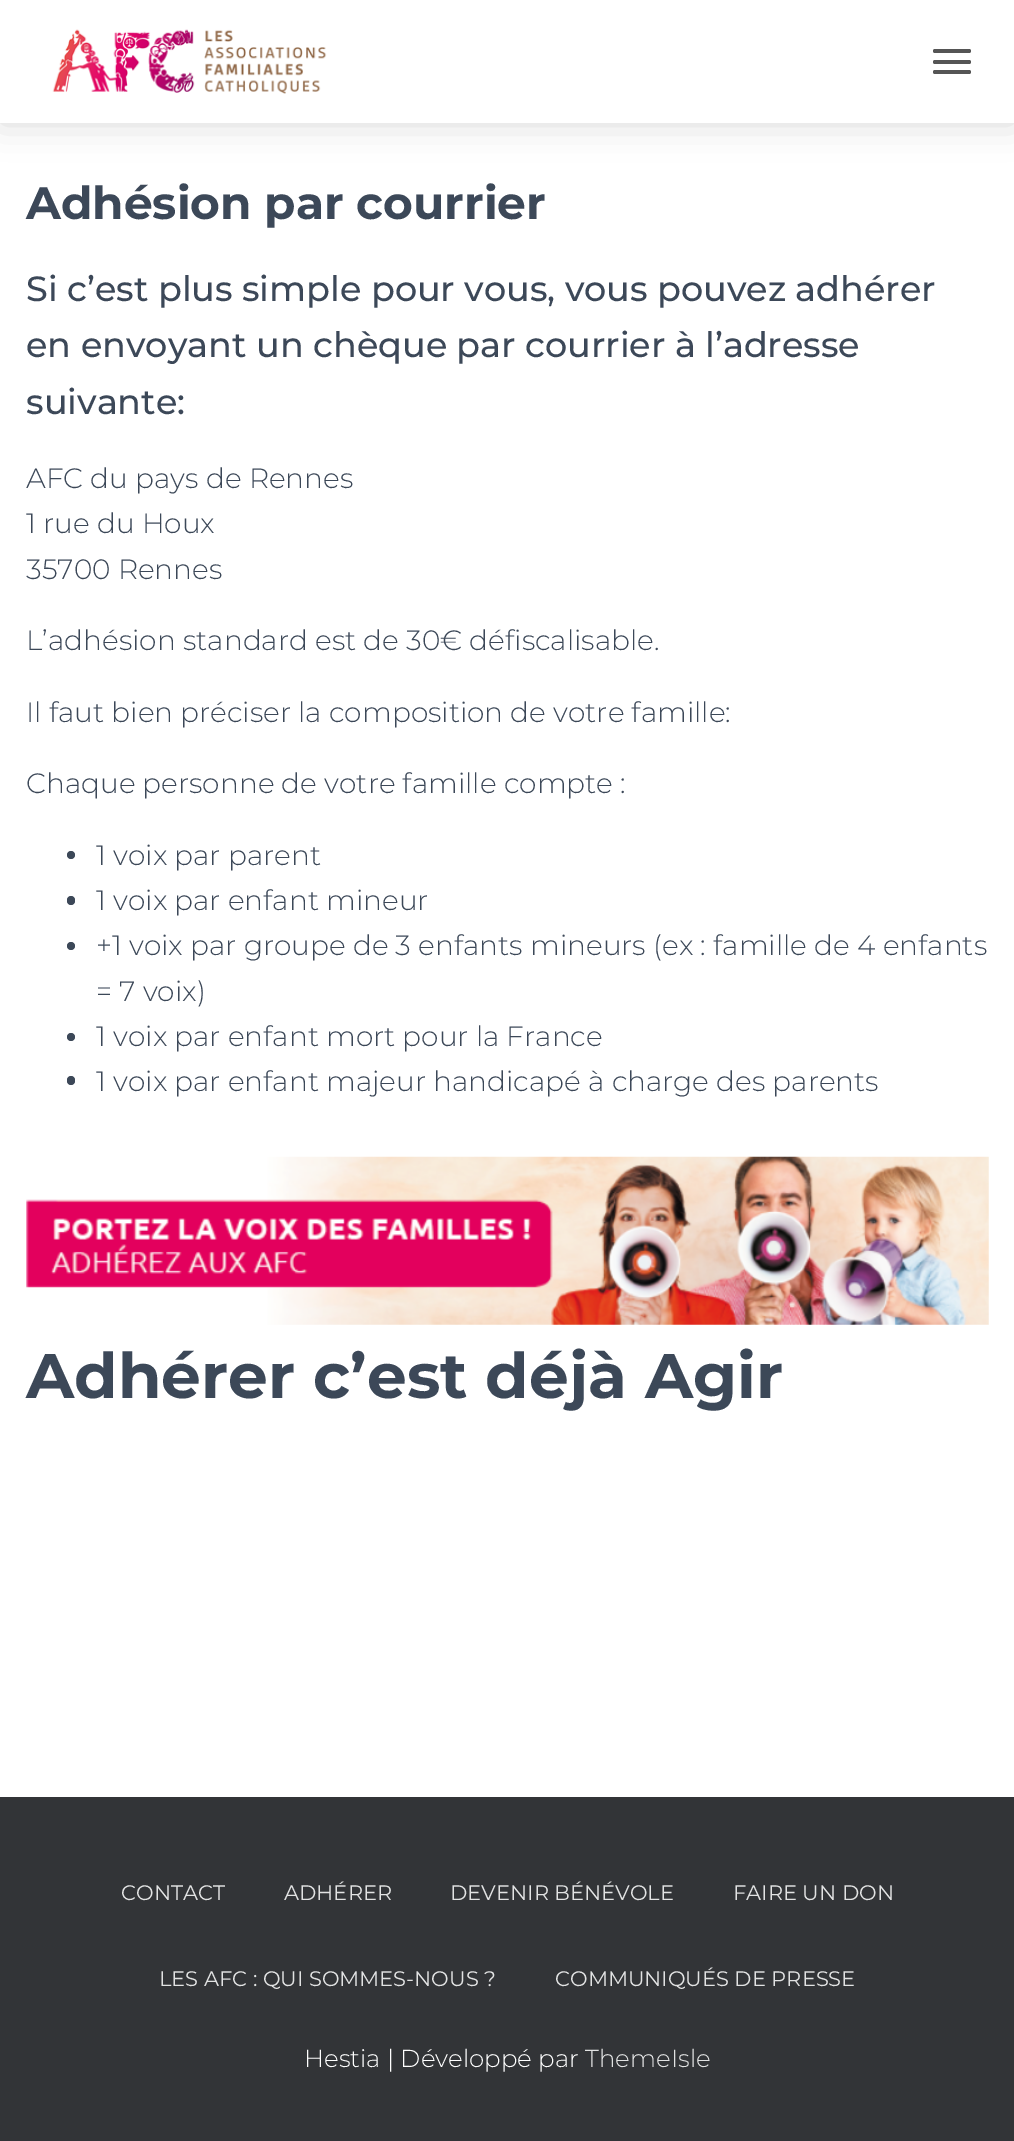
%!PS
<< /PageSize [1014 2141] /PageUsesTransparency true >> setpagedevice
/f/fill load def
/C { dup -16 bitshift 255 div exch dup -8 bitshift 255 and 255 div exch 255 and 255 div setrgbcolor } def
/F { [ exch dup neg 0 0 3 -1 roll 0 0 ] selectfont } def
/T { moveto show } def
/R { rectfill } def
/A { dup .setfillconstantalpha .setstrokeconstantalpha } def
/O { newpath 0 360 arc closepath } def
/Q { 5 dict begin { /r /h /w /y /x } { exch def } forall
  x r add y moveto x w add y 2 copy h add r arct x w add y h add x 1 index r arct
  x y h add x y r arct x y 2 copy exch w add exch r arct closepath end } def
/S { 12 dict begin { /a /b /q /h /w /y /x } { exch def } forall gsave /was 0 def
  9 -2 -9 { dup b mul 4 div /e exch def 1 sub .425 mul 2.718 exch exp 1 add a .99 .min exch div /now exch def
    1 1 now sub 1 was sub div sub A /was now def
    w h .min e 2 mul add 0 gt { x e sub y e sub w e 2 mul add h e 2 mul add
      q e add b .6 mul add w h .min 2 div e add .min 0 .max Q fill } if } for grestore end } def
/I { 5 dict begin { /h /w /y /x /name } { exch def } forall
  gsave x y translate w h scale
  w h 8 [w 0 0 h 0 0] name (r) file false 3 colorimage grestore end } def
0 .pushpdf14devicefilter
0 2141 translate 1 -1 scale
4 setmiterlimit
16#323437 C
0 0 1014 2141 R
16#FFFFFF C
0 123 1014 1674 R
16#000000 C
0 0 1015 123 0 17.5 .15 S
16#FFFFFF C
0 0 1014 123 R
(1.rgb) 52 29 275 65 I
16#555555 C
933 49 38 4 2 Q f
933 60 38 4 2 Q f
933 70 38 4 2 Q f
/Montserrat-Bold 45.5 F
16#3C4858 C
(Adhésion par courrier) 26 219 T
/Montserrat-Medium 35 F
(Si c’est plus simple pour vous, vous pouvez adhérer) 26 301 T
(en envoyant un chèque par courrier à l’adresse) 26 357 T
(suivante:) 26 414 T
/Montserrat-Light 28 F
(AFC du pays de Rennes) 26 488 T
(1 rue du Houx) 26 533 T
(35700 Rennes) 26 579 T
(L’adhésion standard est de 30€ défiscalisable.) 26 650 T
(Il faut bien préciser la composition de votre famille:) 26 722 T
(Chaque personne de votre famille compte :) 26 793 T
71 855 4 O f
(1 voix par parent) 96 865 T
67 896 8 9 4 Q f
(1 voix par enfant mineur) 96 910 T
71 946 4 O f
(+1 voix par groupe de 3 enfants mineurs \(ex : famille de 4 enfants) 96 955 T
(= 7 voix\)) 96 1001 T
71 1037 4 O f
(1 voix par enfant mort pour la France) 96 1046 T
67 1076 8 9 4 Q f
(1 voix par enfant majeur handicapé à charge des parents) 96 1091 T
(2.rgb) 26 1156 963 169 I
/Montserrat-Bold 63 F
(Adhérer c’est déjà Agir) 26 1398 T
/Montserrat-Regular 21 F
16#E2E3E3 C
(CONTACT) 121 1900 T
(ADHÉRER) 284 1900 T
(DEVENIR BÉNÉVOLE) 450 1900 T
(FAIRE UN DON) 733 1900 T
(LES AFC : QUI SOMMES-NOUS ?) 159 1986 T
(COMMUNIQUÉS DE PRESSE) 555 1986 T
/Montserrat-Light 24.5 F
16#FFFFFF C
(Hestia | Développé par) 304 2067 T
16#E2E3E3 C
(ThemeIsle) 585 2067 T
.poppdf14devicefilter showpage
